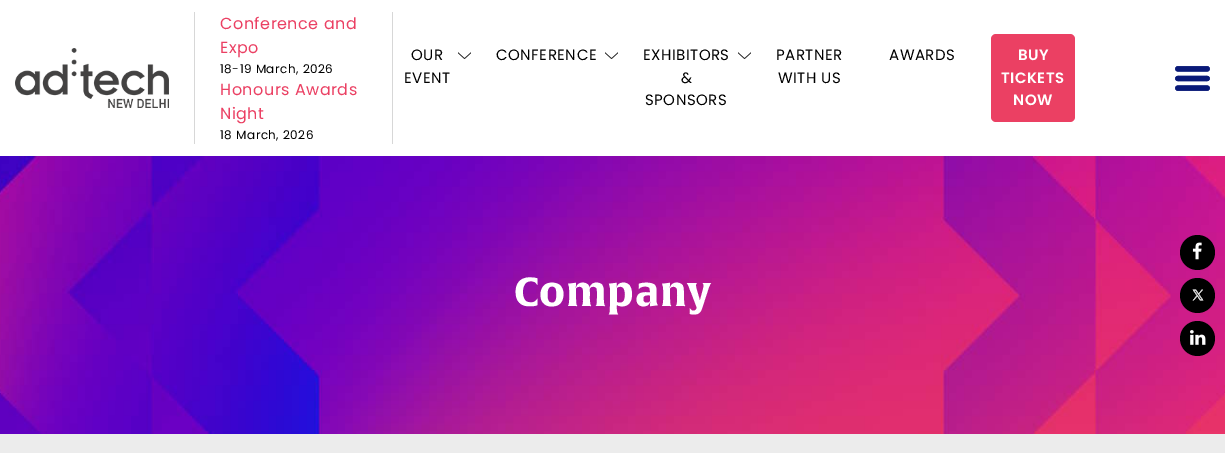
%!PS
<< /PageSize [1225 453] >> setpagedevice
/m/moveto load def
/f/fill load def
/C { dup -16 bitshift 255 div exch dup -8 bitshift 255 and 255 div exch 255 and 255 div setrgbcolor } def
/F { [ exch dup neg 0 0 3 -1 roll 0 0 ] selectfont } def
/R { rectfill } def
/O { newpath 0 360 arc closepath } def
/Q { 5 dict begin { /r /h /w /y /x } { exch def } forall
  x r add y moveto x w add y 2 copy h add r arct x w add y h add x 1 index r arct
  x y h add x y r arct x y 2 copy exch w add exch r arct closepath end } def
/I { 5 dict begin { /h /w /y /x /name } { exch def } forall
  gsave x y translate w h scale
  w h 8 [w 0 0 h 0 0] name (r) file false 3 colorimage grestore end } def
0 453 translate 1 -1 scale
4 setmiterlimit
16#FFFFFF C
0 0 1225 453 R
(1.rgb) 15 48 154 60 I
16#D7D7D7 C
392 12 1 132 R
194 12 1 132 R
/Poppins-Regular 16 F
16#EB4063 C
220 29 m .5 0 (Conference and) ashow
220 53 m .5 0 (Expo) ashow
/Poppins-Regular 12 F
16#000000 C
220 73 m .5 0 (18-19 March, 2026) ashow
/Poppins-Regular 16 F
16#EB4063 C
220 95 m .5 0 (Honours Awards) ashow
220 119 m .5 0 (Night) ashow
/Poppins-Regular 12 F
16#000000 C
220 139 m .5 0 (18 March, 2026) ashow
/Poppins-Regular 15 F
411 60 m .5 0 (OUR) ashow
(2.rgb) 458 52 13 7 I
404 83 m .5 0 (EVENT) ashow
496 60 m .5 0 (CONFERENCE) ashow
(2.rgb) 605 52 13 7 I
643 60 m .5 0 (EXHIBITORS) ashow
(2.rgb) 738 52 13 7 I
681 83 m .5 0 (&) ashow
645 105 m .5 0 (SPONSORS) ashow
776 60 m .5 0 (PARTNER) ashow
778 83 m .5 0 (WITH US) ashow
889 60 m .5 0 (AWARDS) ashow
16#EB4063 C
991 34 84 88 5 Q f
/Poppins-SemiBold 15 F
16#FFFFFF C
1018 60 m .5 0 (BUY) ashow
1001 83 m .5 0 (TICKETS) ashow
1013 105 m .5 0 (NOW) ashow
(3.rgb) 1175 66 35 25 I
(4.rgb) 0 156 1225 278 I
/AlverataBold-Bold 40 F
514 306 m .5 0 (Company) ashow
16#ECECEC C
0 434 1225 19 R
16#000000 C
1197.5 252.5 17.5 O f
(5.rgb) 1192 242 10 18 I
1197.5 295.5 17.5 O f
(6.rgb) 1192 289 12 12 I
1197.5 338.5 17.5 O f
(7.rgb) 1190 330 16 15 I
showpage
